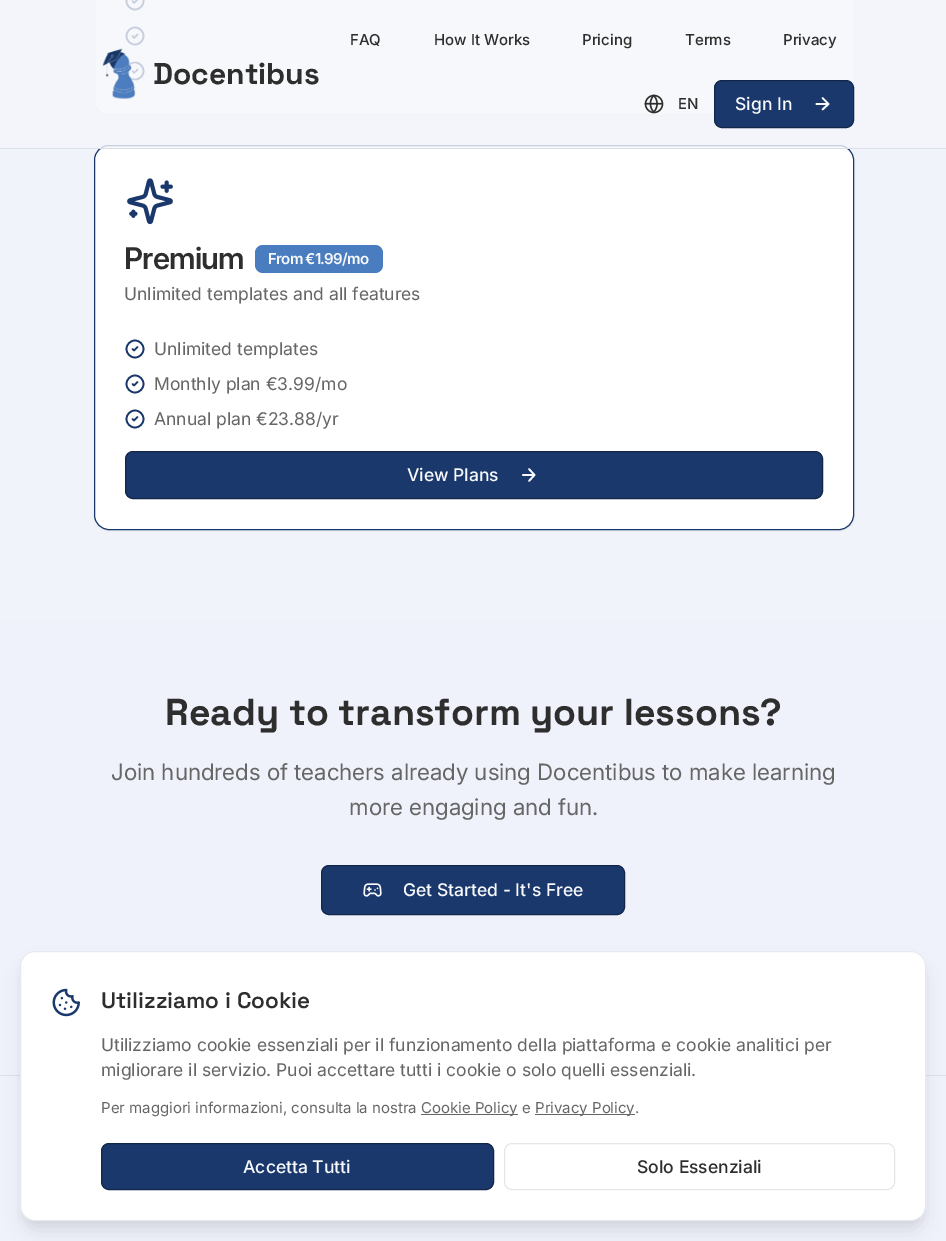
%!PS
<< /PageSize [946 1241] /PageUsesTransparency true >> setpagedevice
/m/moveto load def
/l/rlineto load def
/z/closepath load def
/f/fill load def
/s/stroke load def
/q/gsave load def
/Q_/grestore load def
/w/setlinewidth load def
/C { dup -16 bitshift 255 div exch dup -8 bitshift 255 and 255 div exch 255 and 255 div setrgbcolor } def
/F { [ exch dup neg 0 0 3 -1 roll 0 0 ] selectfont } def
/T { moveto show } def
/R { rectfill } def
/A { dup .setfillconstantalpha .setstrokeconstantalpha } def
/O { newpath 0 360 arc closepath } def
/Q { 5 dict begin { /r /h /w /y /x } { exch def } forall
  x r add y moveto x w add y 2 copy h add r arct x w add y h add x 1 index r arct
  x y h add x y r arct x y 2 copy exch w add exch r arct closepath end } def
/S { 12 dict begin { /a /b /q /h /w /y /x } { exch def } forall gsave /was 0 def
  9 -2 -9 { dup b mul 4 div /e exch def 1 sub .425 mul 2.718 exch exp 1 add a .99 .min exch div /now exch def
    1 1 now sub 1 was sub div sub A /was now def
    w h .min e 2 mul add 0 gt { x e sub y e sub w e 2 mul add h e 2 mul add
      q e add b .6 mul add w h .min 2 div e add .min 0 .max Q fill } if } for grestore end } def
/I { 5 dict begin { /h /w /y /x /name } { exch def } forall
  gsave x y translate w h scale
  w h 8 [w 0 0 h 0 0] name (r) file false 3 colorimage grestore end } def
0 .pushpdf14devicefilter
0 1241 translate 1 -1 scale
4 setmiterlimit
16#FFFFFF C
0 0 946 1241 R
q 0 0 m 946 0 l 0 1241 l -946 0 l z clip newpath
<< /ShadingType 2 /ColorSpace /DeviceRGB /Coords [473 -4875 473 1241] /Extend [true true] /Function << /FunctionType 2 /Domain [0 1] /C0 [.961 .965 .98] /C1 [.941 .949 .984] /N 1 >> >> shfill Q_
16#000000 C
94 -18 760 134 15 1 .05 S
16#FFFFFF C
94.5 -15.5 759 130 14.5 Q q f Q_
16#E6EAF0 C
s
16#1A386B C
1.7 w
135 1 8.5 O s
1 setlinecap
1 setlinejoin
132.5 1 m 1.5 2 l 3.5 -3.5 l s
0 setlinecap
0 setlinejoin
135 36 8.5 O s
1 setlinecap
1 setlinejoin
132.5 36 m 1.5 2 l 3.5 -3.5 l s
0 setlinecap
0 setlinejoin
135 71 8.5 O s
1 setlinecap
1 setlinejoin
132.5 71 m 1.5 2 l 3.5 -3.5 l s
16#000000 C
94 146 760 385 15 1 .05 S
16#FFFFFF C
94.5 145.5 759 384 14.5 Q q f Q_
16#1A386B C
1 w
0 setlinecap
0 setlinejoin
s
0.8 A
16#F5F6FA C
0 0 946 148 R
1 A
16#DAE0E7 C
0 148 946 1 R
(1.rgb) 102 48 34 51 I
/SpaceGrotesk-Bold 30 F
16#2E2E2E C
(Docentibus) 153 84 T
/Inter-Medium 15 F
(FAQ) 350 45 T
(How It Works) 434 45 T
(Pricing) 582 45 T
(Terms) 685 45 T
(Privacy) 783 45 T
(2.rgb) 644 94 20 20 I
(EN) 678 109 T
16#1A386B C
714.5 80.5 139 47 7.5 Q q f Q_
16#12264A C
s
/Inter-Medium 17.5 F
16#F8F9FC C
(Sign In) 735 110 T
1.7 w
1 setlinecap
1 setlinejoin
816.5 104 m 12 0 l 822.5 98 m 6 6 l -6 5.5 l s
(3.rgb) 127 178 46 47 I
/Inter-SemiBold 30 F
16#2E2E2E C
124 269 m -.75 0 (Premium) ashow
16#4A7DBF C
255 245 128 28 8 Q f
/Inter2-SemiBold 15 F
16#F8F9FC C
268 264 m -.75 0 (From €1.99/mo) ashow
/Inter2-Regular 17.5 F
16#666666 C
(Unlimited templates and all features) 124 300 T
16#1A386B C
0 setlinecap
0 setlinejoin
135 349 8.5 O s
1 setlinecap
1 setlinejoin
132.5 349 m 1.5 1.5 l 3.5 -3.5 l s
16#666666 C
(Unlimited templates) 154 355 T
16#1A386B C
0 setlinecap
0 setlinejoin
135 384 8.5 O s
1 setlinecap
1 setlinejoin
132.5 384 m 1.5 1.5 l 3.5 -3.5 l s
16#666666 C
(Monthly plan €3.99/mo) 154 390 T
16#1A386B C
0 setlinecap
0 setlinejoin
135 419 8.5 O s
1 setlinecap
1 setlinejoin
132.5 419 m 1.5 1.5 l 3.5 -3.5 l s
16#666666 C
(Annual plan €23.88/yr) 154 425 T
16#1A386B C
125.5 451.5 697 47 7.5 Q q f Q_
16#12264A C
1 w
0 setlinecap
0 setlinejoin
s
/Inter-Medium 17.5 F
16#F8F9FC C
(View Plans) 407 481 T
1.7 w
1 setlinecap
1 setlinejoin
523 475 m 11.5 0 l 529 469 m 5.5 6 l -5.5 6 l s
/SpaceGrotesk-Bold 37.5 F
16#2E2E2E C
(Ready to transform your lessons?) 165 725 T
/Inter-Regular 22.5 F
16#666666 C
(Join hundreds of teachers already using Docentibus to make learning) 111 780 T
(more engaging and fun.) 349 815 T
16#1A386B C
321.5 865.5 303 49 7.5 Q q f Q_
16#12264A C
1 w
0 setlinecap
0 setlinejoin
s
(4.rgb) 363 883 19 14 I
/Inter-Medium 17.5 F
16#F8F9FC C
(Get Started - It's Free) 403 896 T
16#DAE0E7 C
0 1075 946 1 R
16#000000 C
25 961 896 260 10 4 .1 S
24 968 899 262 11 9.5 .1 S
16#FFFFFF C
20.5 951.5 905 269 14.5 Q q f Q_
16#E6EAF0 C
s
(5.rgb) 52 988 28 29 I
/SpaceGrotesk-SemiBold 22.5 F
16#2E2E2E C
(Utilizziamo i Cookie) 101 1008 T
/Inter2-Regular 17.5 F
16#666666 C
(Utilizziamo cookie essenziali per il funzionamento della piattaforma e cookie analitici per) 101 1051 T
(migliorare il servizio. Puoi accettare tutti i cookie o solo quelli essenziali.) 101 1076 T
/Inter2-Regular 15 F
(Per maggiori informazioni, consulta la nostra) 101 1113 T
421 1114 97 1 R
(Cookie Policy e) 421 1113 T
535 1114 100 1 R
(Privacy Policy.) 535 1113 T
16#1A386B C
101.5 1143.5 392 46 7.5 Q q f Q_
16#12264A C
s
/Inter-Medium 17.5 F
16#F8F9FC C
(Accetta Tutti) 243 1173 T
16#E6E6E6 C
504.5 1143.5 390 46 7.5 Q s
16#2E2E2E C
(Solo Essenziali) 637 1173 T
.poppdf14devicefilter showpage
